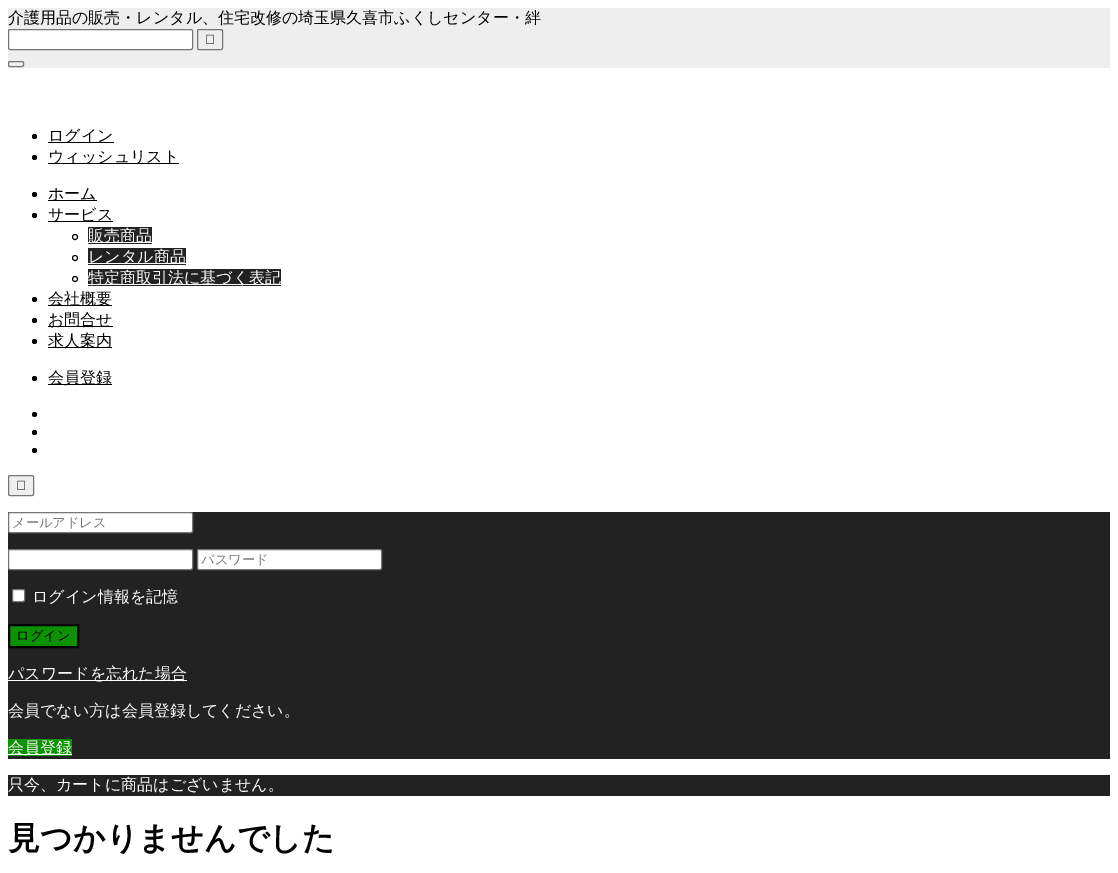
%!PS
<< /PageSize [1118 873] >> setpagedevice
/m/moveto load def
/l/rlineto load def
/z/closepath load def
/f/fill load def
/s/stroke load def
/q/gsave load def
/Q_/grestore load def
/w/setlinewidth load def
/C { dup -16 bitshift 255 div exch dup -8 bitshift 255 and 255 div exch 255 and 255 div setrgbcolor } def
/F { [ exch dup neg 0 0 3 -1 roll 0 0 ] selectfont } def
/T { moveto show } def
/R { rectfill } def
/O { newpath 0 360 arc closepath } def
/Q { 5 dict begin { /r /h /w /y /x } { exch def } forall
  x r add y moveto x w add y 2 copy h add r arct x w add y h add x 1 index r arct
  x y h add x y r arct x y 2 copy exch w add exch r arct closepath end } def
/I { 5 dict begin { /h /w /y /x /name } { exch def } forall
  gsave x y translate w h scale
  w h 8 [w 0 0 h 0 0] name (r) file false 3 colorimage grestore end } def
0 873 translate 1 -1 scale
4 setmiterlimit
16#FFFFFF C
0 0 1118 873 R
16#EEEEEE C
8 8 1102 60 R
/WenQuanYiZenHei-Medium 16 F
16#000000 C
(介護用品の販売・レンタル、住宅改修の埼玉県久喜市ふくしセンター・絆) 8 23 T
16#FFFFFF C
8.5 29.5 184 20 1.5 Q q f Q_
16#767676 C
s
197.5 29.5 25 20 1.5 Q s
(1.rgb) 206 34 8 10 I
8.5 61.5 15 5 1.5 Q s
16#000000 C
34.5 136.5 2.5 O f
48 142 66 1 R
(ログイン) 48 141 T
34.5 157.5 2.5 O f
48 163 131 1 R
(ウィッシュリスト) 48 162 T
34.5 194.5 2.5 O f
48 200 49 1 R
(ホーム) 48 199 T
34.5 215.5 2.5 O f
48 221 65 1 R
(サービス) 48 220 T
75 237 2.5 O s
16#222222 C
88 227 64 17 R
16#FFFFFF C
88 242 64 1 R
(販売商品) 88 241 T
16#000000 C
75 258 2.5 O s
16#222222 C
88 248 98 17 R
16#FFFFFF C
88 263 98 1 R
(レンタル商品) 88 262 T
16#000000 C
75 279 2.5 O s
16#222222 C
88 269 193 17 R
16#FFFFFF C
88 284 193 1 R
(特定商取引法に基づく表記) 88 283 T
16#000000 C
34.5 299.5 2.5 O f
48 305 64 1 R
(会社概要) 48 304 T
34.5 320.5 2.5 O f
48 326 65 1 R
(お問合せ) 48 325 T
34.5 341.5 2.5 O f
48 347 64 1 R
(求人案内) 48 346 T
34.5 378.5 2.5 O f
48 384 64 1 R
(会員登録) 48 383 T
34.5 414.5 2.5 O f
34.5 432.5 2.5 O f
34.5 450.5 2.5 O f
16#EFEFEF C
8.5 475.5 25 20 1.5 Q q f Q_
16#767676 C
s
(2.rgb) 17 480 8 10 I
16#222222 C
8 512 1102 247 R
16#FFFFFF C
8.5 512.5 184 20 1.5 Q q f Q_
16#767676 C
s
/WenQuanYiZenHei-Medium 13.25 F
16#757575 C
(メールアドレス) 12 527 T
16#FFFFFF C
8.5 549.5 184 20 1.5 Q q f Q_
16#767676 C
s
16#FFFFFF C
197.5 549.5 184 20 1.5 Q q f Q_
16#767676 C
s
16#757575 C
(パスワード) 201 564 T
16#FFFFFF C
12.5 589.5 12 12 1.5 Q q f Q_
16#767676 C
s
/WenQuanYiZenHei-Medium 16 F
16#FFFFFF C
(ログイン情報を記憶) 32 602 T
16#0C9100 C
9 625 m 69 0 l 0 22 l -69 0 l z q f Q_
16#000000 C
2 w
s
/WenQuanYiZenHei-Medium 13.25 F
(ログイン) 16 640 T
16#FFFFFF C
8 680 179 1 R
/WenQuanYiZenHei-Medium 16 F
(パスワードを忘れた場合) 8 679 T
(会員でない方は会員登録してください。) 8 716 T
16#0C9100 C
8 739 64 17 R
16#FFFFFF C
8 754 64 1 R
(会員登録) 8 753 T
16#222222 C
8 775 1102 21 R
16#FFFFFF C
(只今、カートに商品はございません。) 8 790 T
/WenQuanYiZenHei-Bold 32 F
16#000000 C
(見つかりませんでした) 8 849 T
showpage
